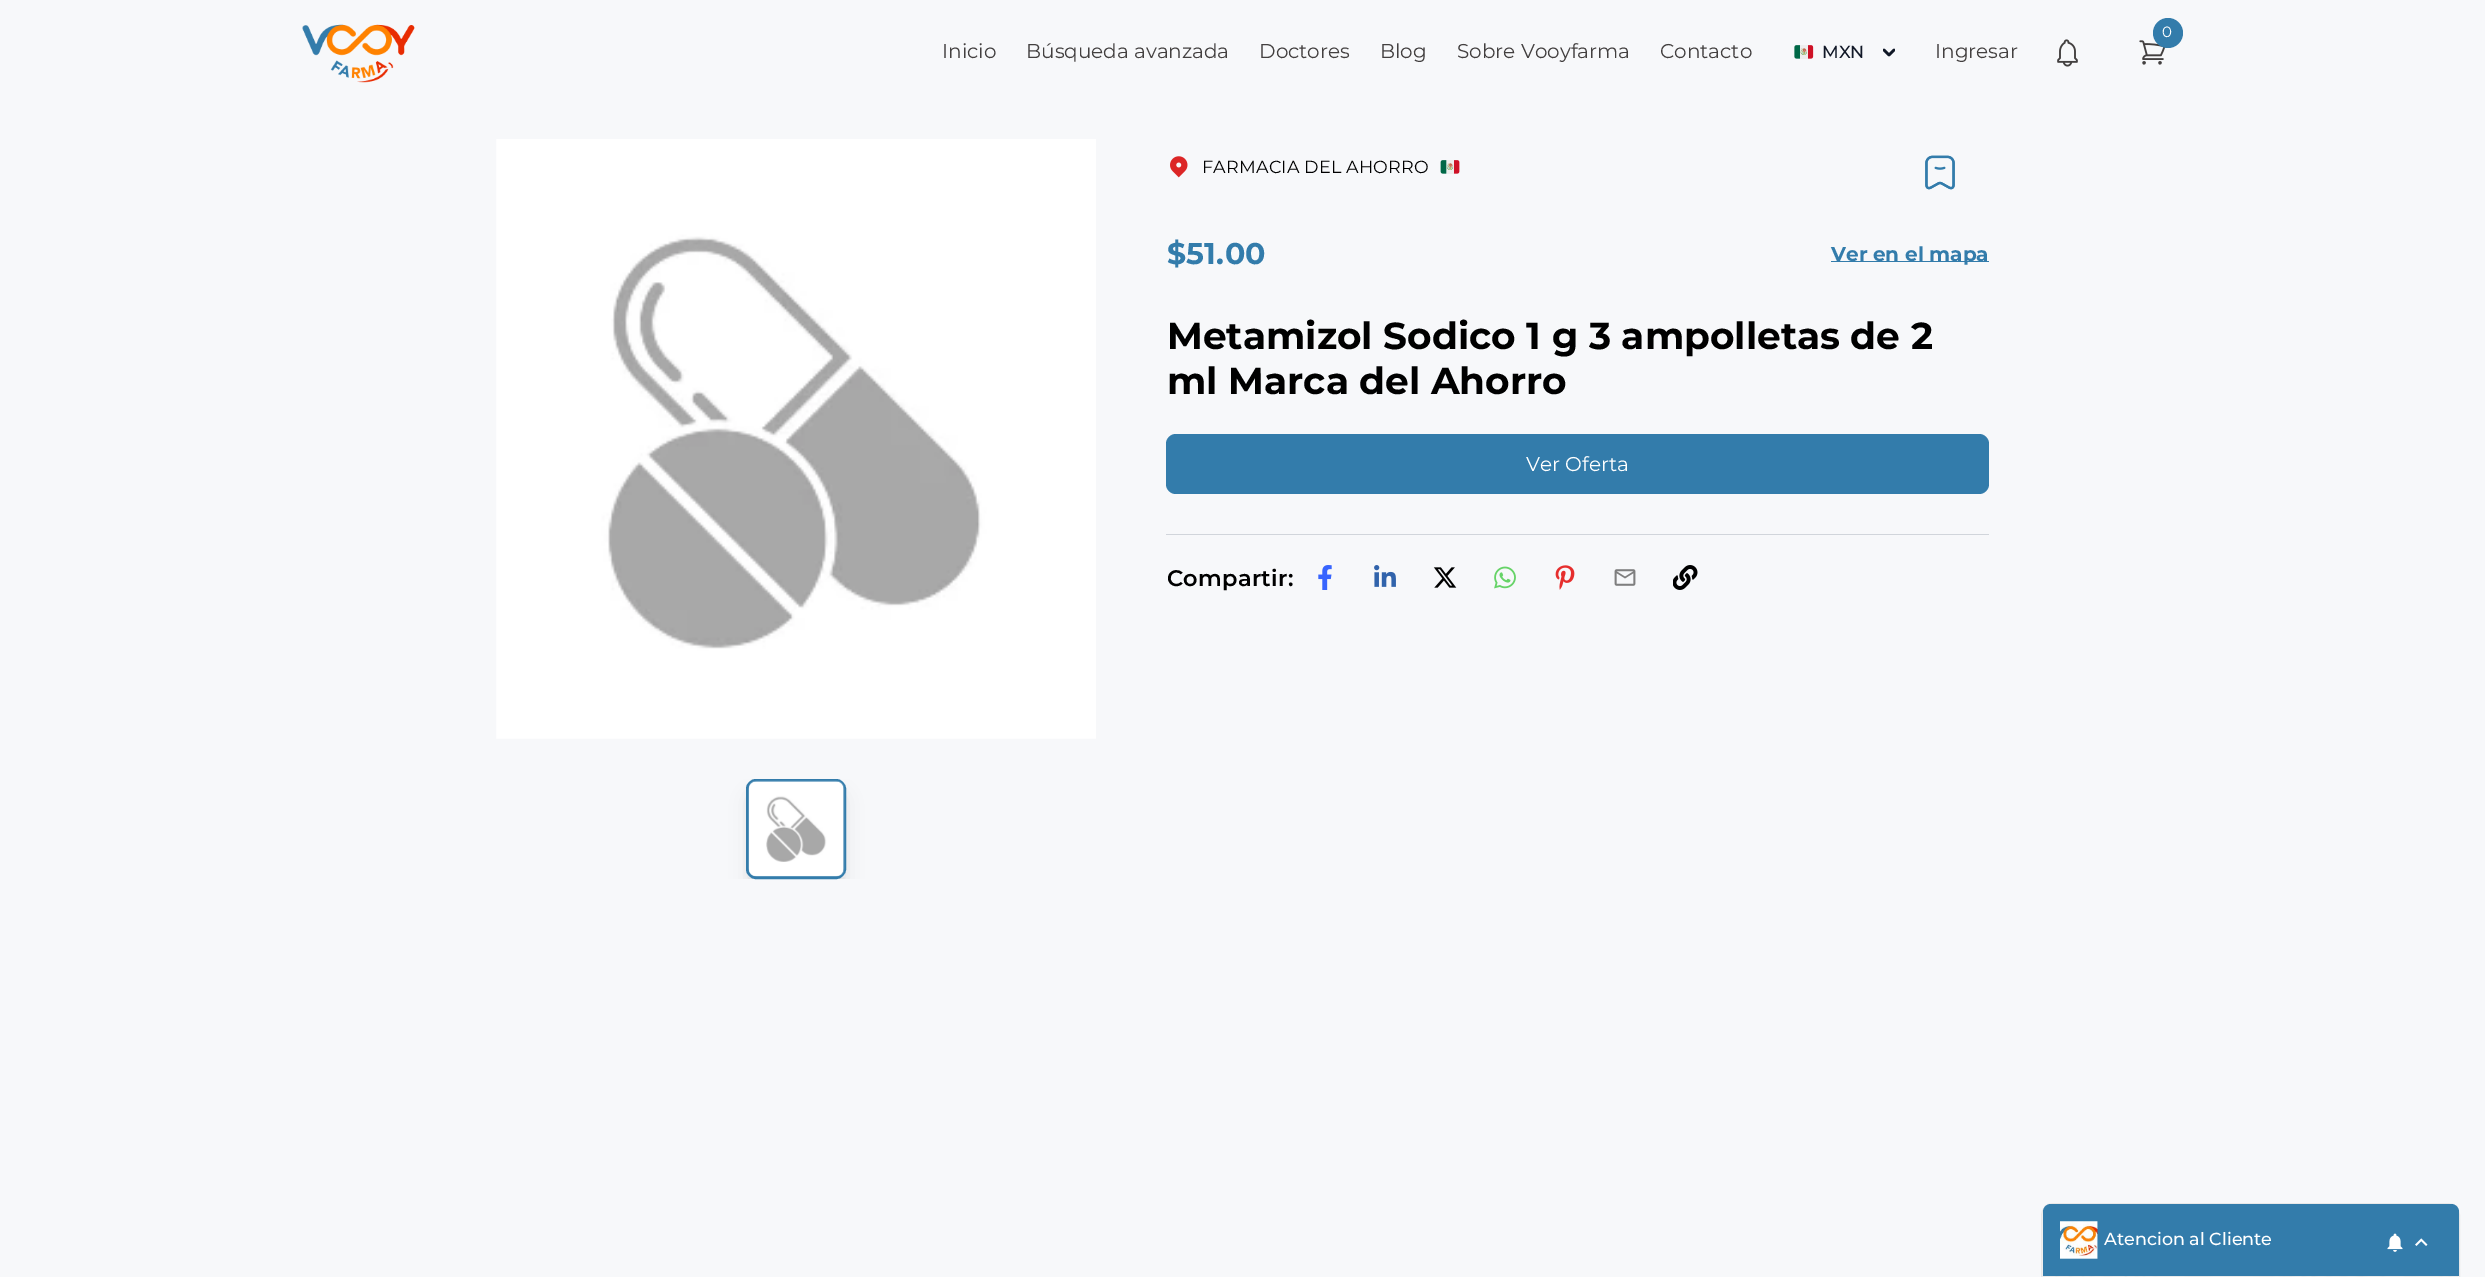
%!PS
<< /PageSize [2485 1277] /PageUsesTransparency true >> setpagedevice
/m/moveto load def
/l/rlineto load def
/c/rcurveto load def
/z/closepath load def
/f/fill load def
/s/stroke load def
/q/gsave load def
/Q_/grestore load def
/w/setlinewidth load def
/C { dup -16 bitshift 255 div exch dup -8 bitshift 255 and 255 div exch 255 and 255 div setrgbcolor } def
/F { [ exch dup neg 0 0 3 -1 roll 0 0 ] selectfont } def
/T { moveto show } def
/R { rectfill } def
/A { dup .setfillconstantalpha .setstrokeconstantalpha } def
/O { newpath 0 360 arc closepath } def
/Q { 5 dict begin { /r /h /w /y /x } { exch def } forall
  x r add y moveto x w add y 2 copy h add r arct x w add y h add x 1 index r arct
  x y h add x y r arct x y 2 copy exch w add exch r arct closepath end } def
/S { 12 dict begin { /a /b /q /h /w /y /x } { exch def } forall gsave /was 0 def
  9 -2 -9 { dup b mul 4 div /e exch def 1 sub .425 mul 2.718 exch exp 1 add a .99 .min exch div /now exch def
    1 1 now sub 1 was sub div sub A /was now def
    w h .min e 2 mul add 0 gt { x e sub y e sub w e 2 mul add h e 2 mul add
      q e add b .6 mul add w h .min 2 div e add .min 0 .max Q fill } if } for grestore end } def
/I { 5 dict begin { /h /w /y /x /name } { exch def } forall
  gsave x y translate w h scale
  w h 8 [w 0 0 h 0 0] name (r) file false 3 colorimage grestore end } def
0 .pushpdf14devicefilter
0 1277 translate 1 -1 scale
4 setmiterlimit
16#F7F8FA C
0 0 2485 1277 R
(1.rgb) 302 24 113 59 I
(2.rgb) 2139 40 27 25 I
16#337CAB C
2168 33 15 O f
/Montserrat-Regular 15 F
16#FFFFFF C
(0) 2162 37 T
/Montserrat-Regular 20 F
16#434040 C
(Inicio) 942 58 T
(Búsqueda avanzada) 1026 58 T
(Doctores) 1259 58 T
(Blog) 1380 58 T
(Sobre Vooyfarma) 1457 58 T
(Contacto) 1660 58 T
(3.rgb) 1794 45 20 14 I
/Montserrat-Medium 17.5 F
16#111827 C
(MXN) 1822 58 T
q
1883 46 12 13 rectclip
2.5 w
1 setlinecap
1 setlinejoin
1884 50 m 5 5 l 5 -5 l s
Q_
/Montserrat-Regular 20 F
16#434040 C
(Ingresar) 1935 58 T
(4.rgb) 2057 39 21 28 I
(5.rgb) 496 139 600 600 I
q
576 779 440 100 rectclip
16#000000 C
751 789 90 90 5 4 .1 S
750 795 93 93 6 9.5 .1 S
Q_
16#337CAB C
3 w
747.5 780.5 97 97 8.5 Q s
(6.rgb) 748 780 97 97 I
(7.rgb) 1170 156 18 22 I
/Montserrat-Regular 17.5 F
16#000000 C
1202 173 m .2 0 (FARMACIA DEL AHORRO) ashow
(8.rgb) 1440 160 20 14 I
(9.rgb) 1925 155 30 35 I
/Montserrat-Bold 30 F
16#337CAB C
1167 264 m .25 0 ($51.00) ashow
1831 261 158 1 R
/Montserrat-Bold 20 F
(Ver en el mapa) 1831 261 T
/Montserrat-Bold 37.5 F
16#000000 C
(Metamizol Sodico 1 g 3 ampolletas de 2) 1167 349 T
(ml Marca del Ahorro) 1167 394 T
16#337CAB C
1166 434 823 60 10 Q f
/Montserrat-Regular 20 F
16#FFFFFF C
(Ver Oferta) 1526 471 T
16#D1D5DB C
1166 534 823 1 R
/Montserrat-SemiBold 22.5 F
16#000000 C
1167 586 m .25 0 (Compartir:) ashow
(10.rgb) 1318 565 14 25 I
(11.rgb) 1374 565 22 22 I
(12.rgb) 1433 567 24 21 I
(13.rgb) 1494 566 22 23 I
(14.rgb) 1555 565 20 25 I
(15.rgb) 1614 569 22 17 I
(16.rgb) 1673 565 25 25 I
(17.rgb) 2042 1203 417 74 I
16#E8E8E8 C
1 w
2054 1203.5 m 393 0 l 7 0 12.5 5.5 12.5 12.5 c 0 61.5 l -418 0 l 0 -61.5 l 0 -7 5.5 -12.5 12.5 -12.5 c z s
16#337CAB C
2051 1204 m 400 0 l 4.5 0 8 3.5 8 8 c 0 64 l -416 0 l 0 -64 l 0 -4.5 3.5 -8 8 -8 c z f
(18.rgb) 2060 1221 38 38 I
/Montserrat-Medium 17.5 F
16#FFFFFF C
(Atencion al Cliente) 2104 1245 T
(19.rgb) 2387 1233 16 19 I
(20.rgb) 2415 1238 13 8 I
.poppdf14devicefilter showpage
